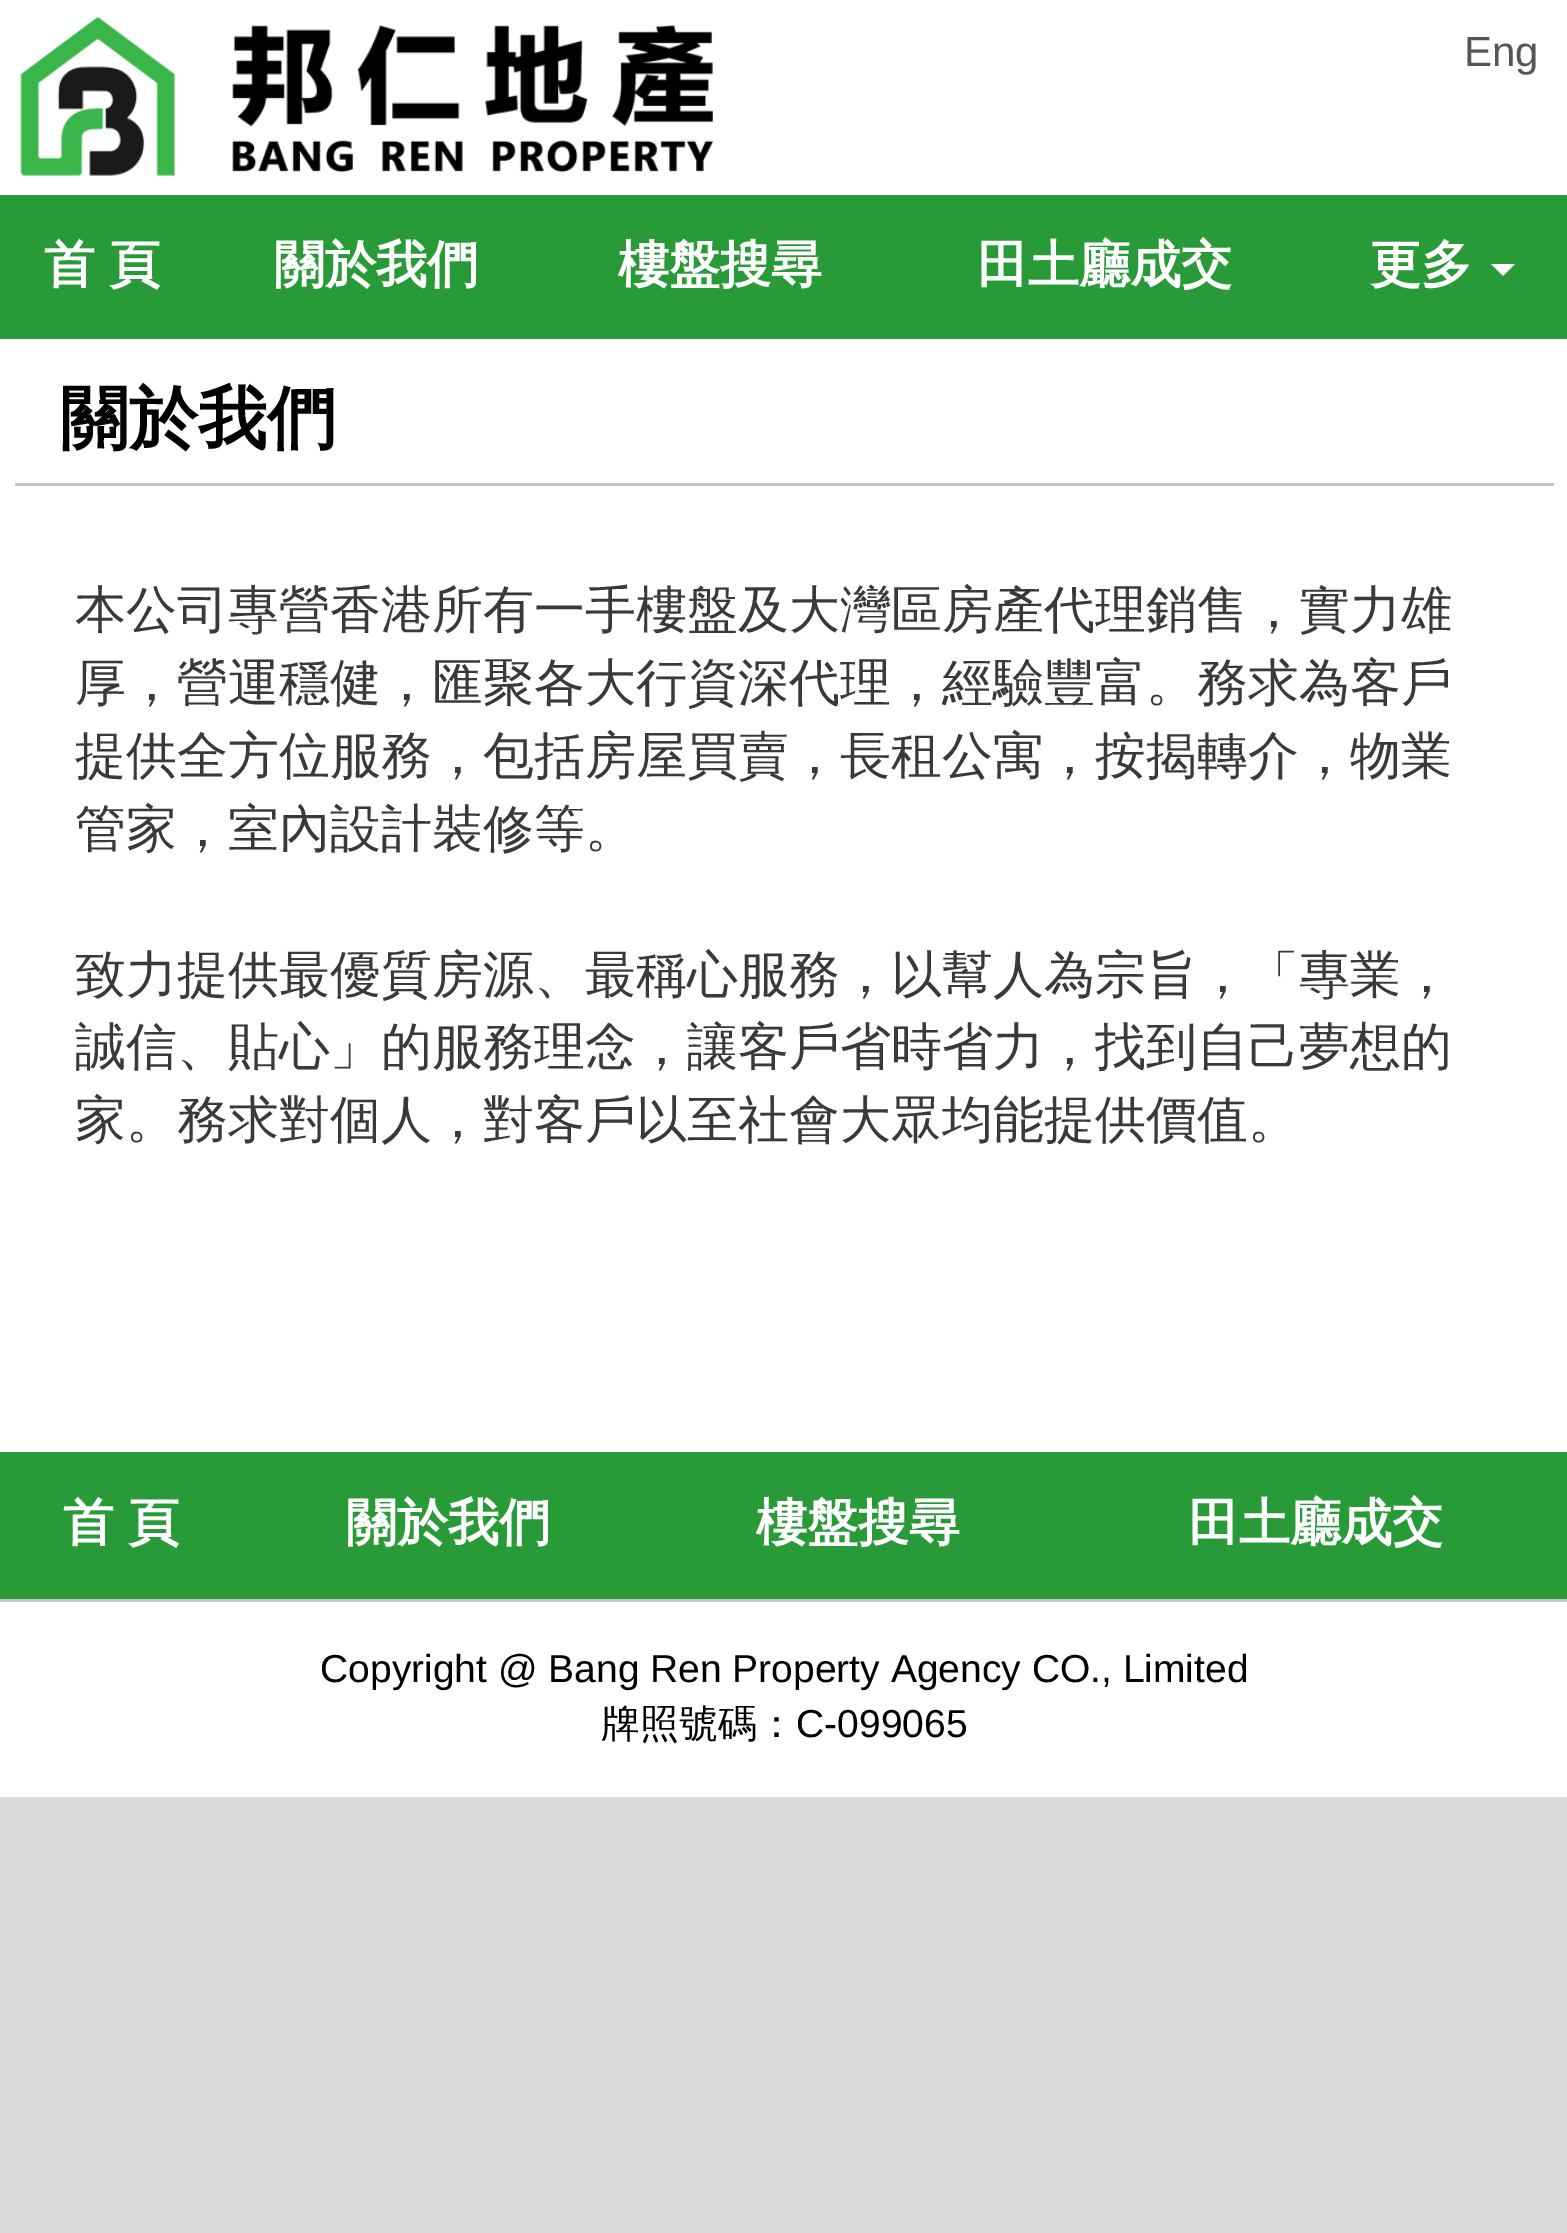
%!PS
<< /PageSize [1567 2233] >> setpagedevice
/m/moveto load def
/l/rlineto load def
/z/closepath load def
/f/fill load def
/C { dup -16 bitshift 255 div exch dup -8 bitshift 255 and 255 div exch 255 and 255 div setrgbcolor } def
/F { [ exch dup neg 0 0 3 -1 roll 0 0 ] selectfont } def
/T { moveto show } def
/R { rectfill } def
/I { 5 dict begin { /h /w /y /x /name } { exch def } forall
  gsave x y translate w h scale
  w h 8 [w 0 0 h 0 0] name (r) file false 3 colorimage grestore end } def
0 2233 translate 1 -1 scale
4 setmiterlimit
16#DBDBDB C
0 0 1567 2233 R
16#FFFFFF C
0 0 1567 195 R
(1.rgb) 20 17 693 160 I
/LiberationSans-Regular 42 F
16#555555 C
(Eng) 1464 66 T
16#289B38 C
0 195 1567 144 R
/WenQuanYiZenHei-Bold 51 F
16#FFFFFF C
44 282 m -1 0 32 (首 頁) widthshow
(關於我們) 274 282 T
(樓盤搜尋) 618 282 T
(田土廳成交) 977 282 T
(更多) 1370 282 T
1491 264 m 24 0 l -12 12 l z f
0 339 1567 1113 R
16#C5C5C5 C
15 483 1539 3 R
/WenQuanYiZenHei-Bold 69 F
16#000000 C
(關於我們) 60 442 T
/WenQuanYiZenHei-Medium 51 F
16#393939 C
(本公司專營香港所有一手樓盤及大灣區房產代理銷售，實力雄) 75 627 T
(厚，營運穩健，匯聚各大行資深代理，經驗豐富。務求為客戶) 75 700 T
(提供全方位服務，包括房屋買賣，長租公寓，按揭轉介，物業) 75 773 T
(管家，室內設計裝修等。) 75 846 T
(致力提供最優質房源、最稱心服務，以幫人為宗旨，「專業，) 75 992 T
(誠信、貼心」的服務理念，讓客戶省時省力，找到自己夢想的) 75 1064 T
(家。務求對個人，對客戶以至社會大眾均能提供價值。) 75 1137 T
16#FFFFFF C
0 1602 1567 195 R
16#289B38 C
0 1452 1567 147 R
/WenQuanYiZenHei-Bold 51 F
16#FFFFFF C
63 1540 m -1 0 32 (首 頁) widthshow
(關於我們) 346 1540 T
(樓盤搜尋) 756 1540 T
(田土廳成交) 1188 1540 T
16#C7C7C7 C
0 1599 1567 3 R
/LiberationSans-Regular 39 F
16#000000 C
(Copyright @ Bang Ren Property Agency CO., Limited) 320 1682 T
/WenQuanYiZenHei-Medium 39 F
(牌照號碼：) 601 1737 T
/LiberationSans-Regular 39 F
(C-099065) 796 1737 T
showpage
